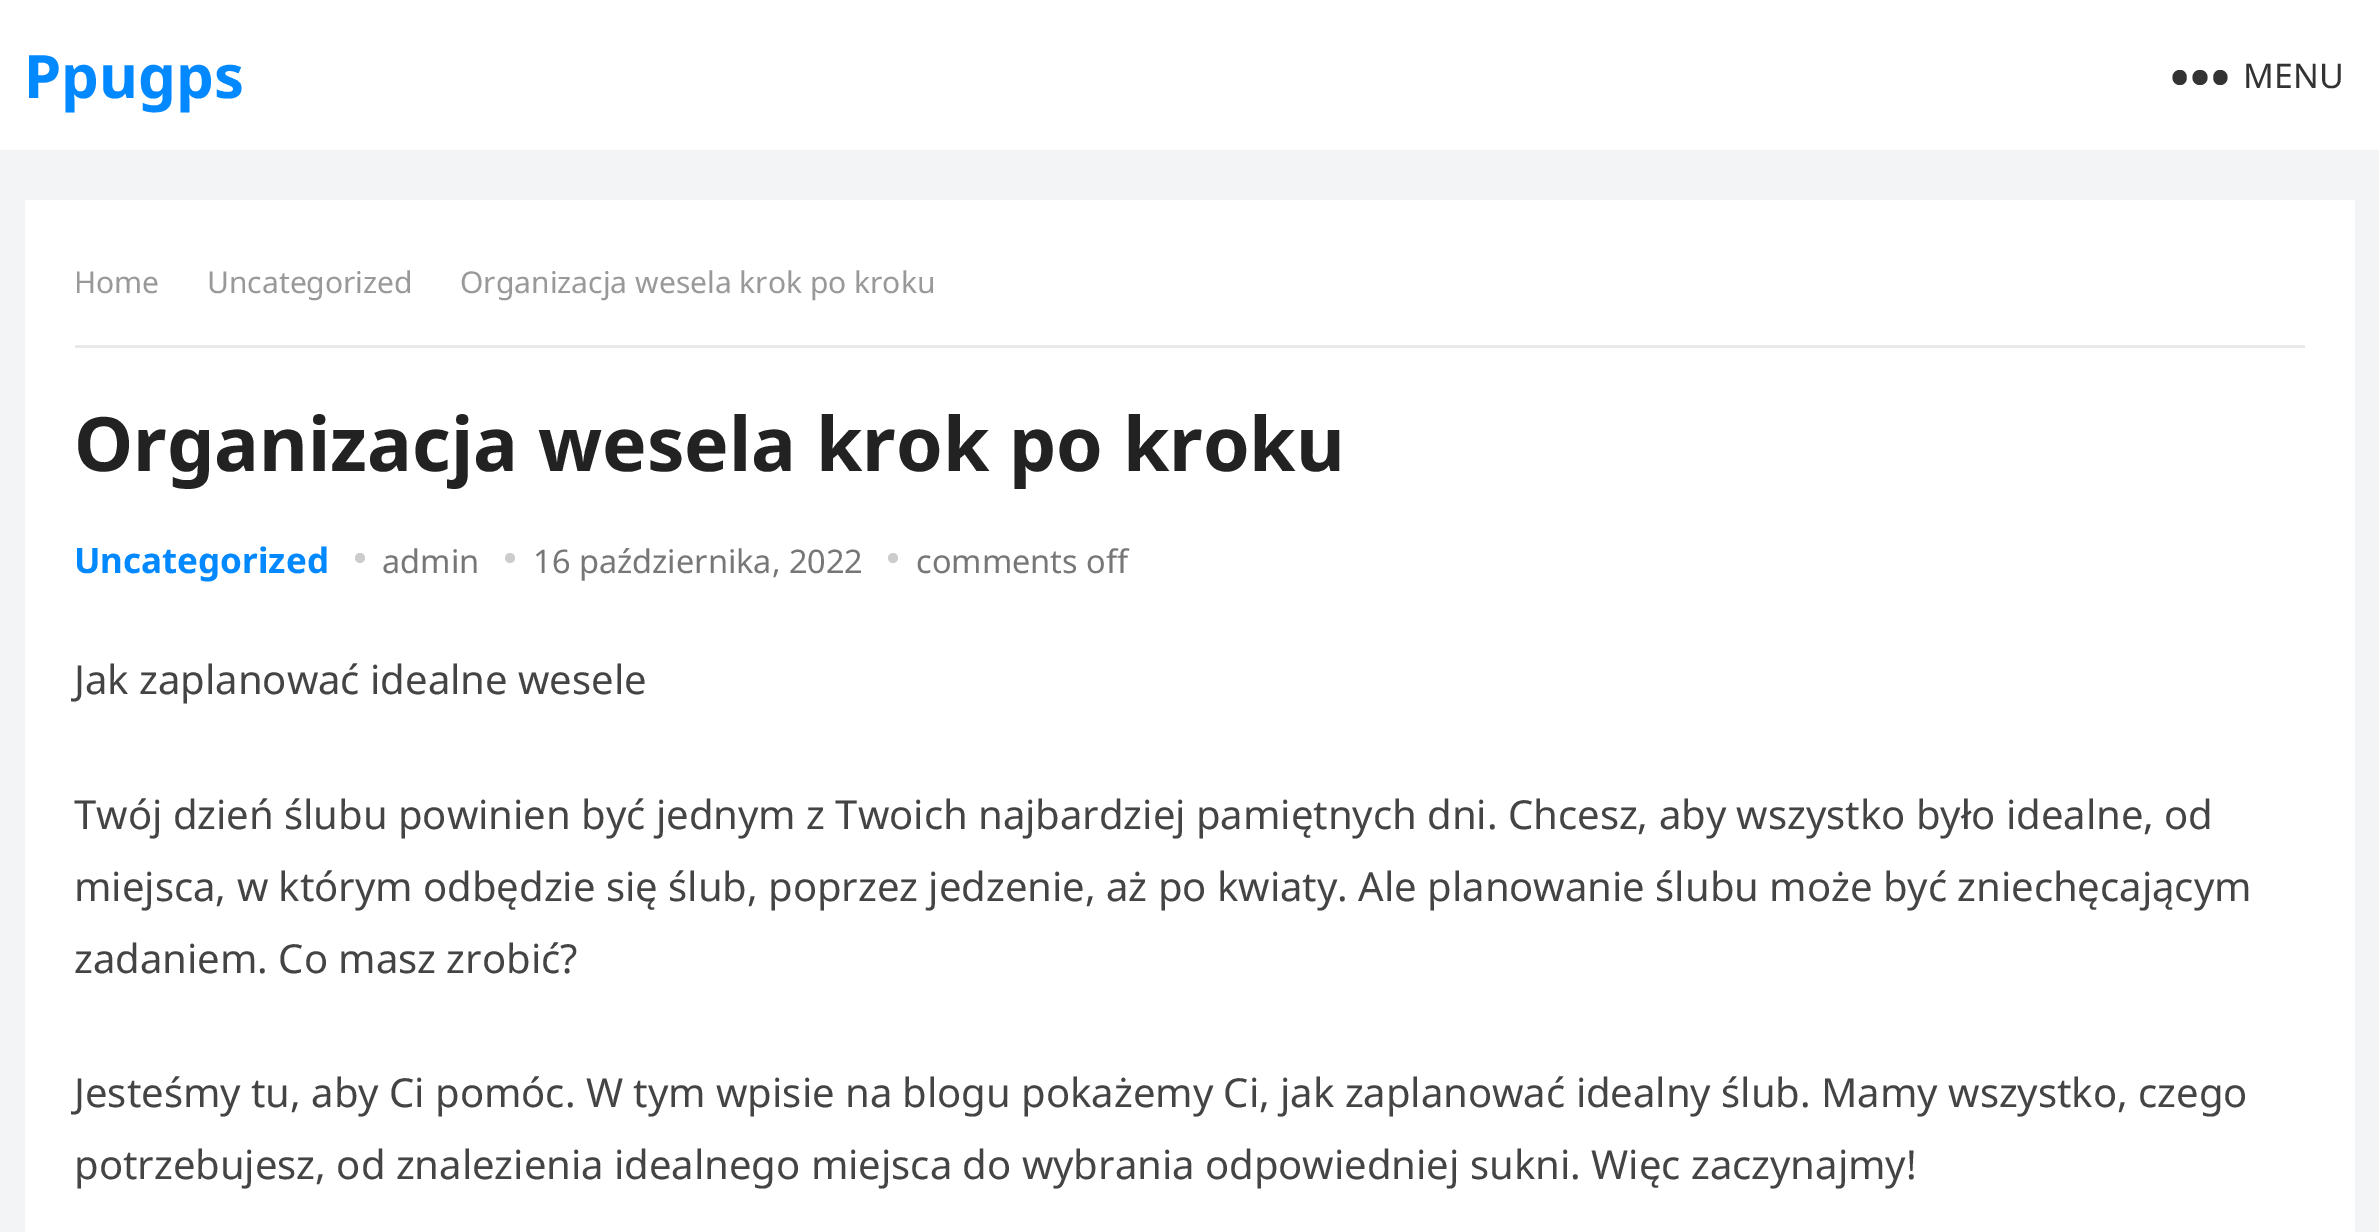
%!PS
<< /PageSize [2379 1232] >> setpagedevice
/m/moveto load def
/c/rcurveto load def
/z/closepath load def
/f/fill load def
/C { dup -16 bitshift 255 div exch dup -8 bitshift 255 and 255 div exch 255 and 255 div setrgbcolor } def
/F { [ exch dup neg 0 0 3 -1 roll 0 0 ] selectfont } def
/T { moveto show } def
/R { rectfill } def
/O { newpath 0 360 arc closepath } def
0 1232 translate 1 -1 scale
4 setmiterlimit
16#F3F4F5 C
0 0 2379 1232 R
16#FFFFFF C
0 0 2379 150 R
/NotoSans-Bold 60 F
16#0389FF C
(Ppugps) 24 98 T
/NotoSans-Regular 34 F
16#333333 C
(MENU) 2243 88 T
2180 85 m -10 0 -10 -15 0 -15 c 9 0 9 15 0 15 c z 2200 85 m -10 0 -10 -15 0 -15 c 10 0 10 15 0 15 c z 2220 85 m -9 0 -9 -15 0 -15 c 10 0 10 15 0 15 c z eofill
16#FFFFFF C
25 200 2330 1032 R
16#E9E9E9 C
75 345 2230 3 R
/NotoSans-Regular 30 F
16#999999 C
(Home) 74 293 T
(Uncategorized) 207 293 T
(Organizacja wesela krok po kroku) 460 293 T
/NotoSans-Bold 75 F
16#222222 C
(Organizacja wesela krok po kroku) 74 471 T
/NotoSans-Bold 35 F
16#0389FF C
(Uncategorized) 74 573 T
16#CCCCCC C
360 558 5 O f
/NotoSans-Regular 32.5 F
16#777777 C
(admin) 382 573 T
16#CCCCCC C
510 558 5 O f
16#777777 C
(16 października, 2022) 533 573 T
16#CCCCCC C
893 558 5 O f
16#777777 C
(comments off) 916 573 T
/NotoSans-Regular 40 F
16#444444 C
(Jak zaplanować idealne wesele) 74 694 T
(Twój dzień ślubu powinien być jednym z Twoich najbardziej pamiętnych dni. Chcesz, aby wszystko było idealne, od) 74 829 T
(miejsca, w którym odbędzie się ślub, poprzez jedzenie, aż po kwiaty. Ale planowanie ślubu może być zniechęcającym) 74 901 T
(zadaniem. Co masz zrobić?) 74 973 T
(Jesteśmy tu, aby Ci pomóc. W tym wpisie na blogu pokażemy Ci, jak zaplanować idealny ślub. Mamy wszystko, czego) 74 1107 T
(potrzebujesz, od znalezienia idealnego miejsca do wybrania odpowiedniej sukni. Więc zaczynajmy!) 74 1179 T
showpage
